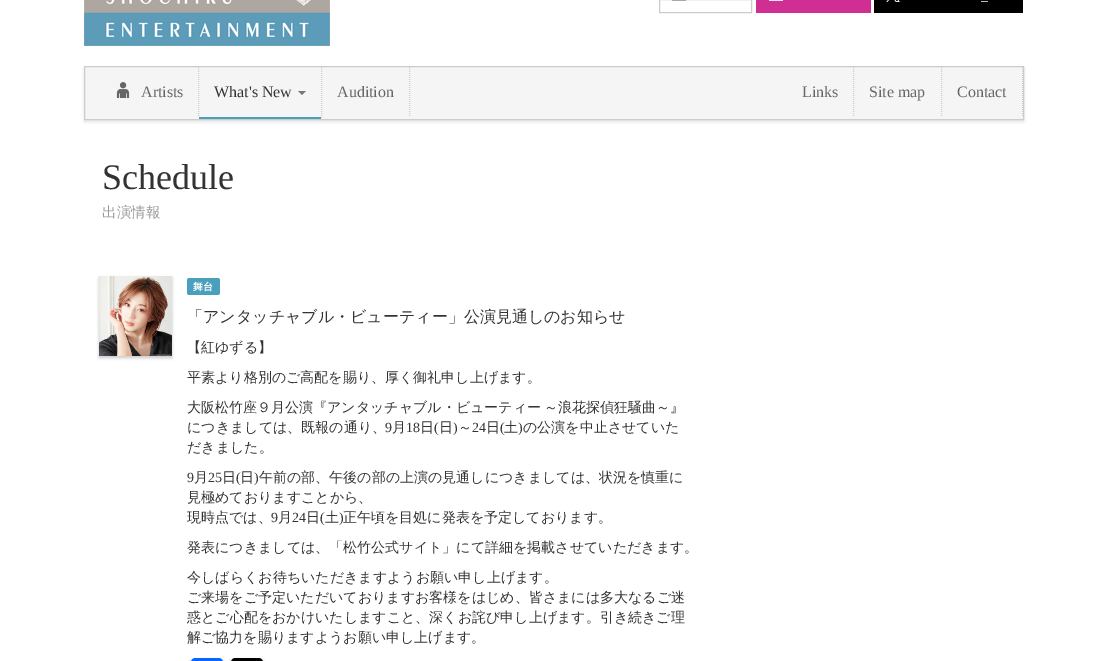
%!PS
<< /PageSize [1107 661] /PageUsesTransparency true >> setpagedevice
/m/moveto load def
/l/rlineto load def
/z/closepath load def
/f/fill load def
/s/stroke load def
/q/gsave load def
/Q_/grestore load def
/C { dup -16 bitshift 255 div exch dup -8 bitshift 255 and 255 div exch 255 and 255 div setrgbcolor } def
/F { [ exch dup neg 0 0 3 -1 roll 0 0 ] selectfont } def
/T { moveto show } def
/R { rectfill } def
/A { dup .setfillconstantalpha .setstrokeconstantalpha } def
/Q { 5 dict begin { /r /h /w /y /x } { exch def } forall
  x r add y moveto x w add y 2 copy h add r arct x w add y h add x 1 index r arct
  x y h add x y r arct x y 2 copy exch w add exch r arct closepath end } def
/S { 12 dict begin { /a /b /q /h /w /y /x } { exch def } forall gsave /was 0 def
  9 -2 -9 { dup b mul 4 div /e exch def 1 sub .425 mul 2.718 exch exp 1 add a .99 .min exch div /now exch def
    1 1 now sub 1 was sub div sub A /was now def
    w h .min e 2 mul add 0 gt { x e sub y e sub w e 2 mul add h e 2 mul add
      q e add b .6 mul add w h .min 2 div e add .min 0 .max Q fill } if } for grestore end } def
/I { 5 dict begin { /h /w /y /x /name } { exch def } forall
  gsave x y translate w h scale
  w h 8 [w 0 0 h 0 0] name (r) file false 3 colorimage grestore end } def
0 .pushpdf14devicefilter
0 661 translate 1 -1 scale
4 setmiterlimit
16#FFFFFF C
0 0 1107 661 R
(1.rgb) 84 0 246 46 I
16#CCCCCC C
659.5 -.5 92 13 rectstroke
16#A7A7A7 C
672 0 14 1 R
16#CF2E92 C
756 0 115 13 R
16#F9E4F1 C
769 0 14 1 R
16#000000 C
874 0 149 13 R
(2.rgb) 886 0 14 2 I
/LiberationSerif-Regular 14 F
16#FFFFFF C
981 0 m 1 0 (_) ashow
16#000000 C
84 68 940 54 0 1.5 .1 S
16#F5F5F5 C
85 68 938 51 R
16#CCCCCC C
84.5 66.5 939 53 rectstroke
[1 1] 0 setdash
198.5 67 m 0 50 l s
(3.rgb) 116 82 14 16 I
/LiberationSerif-Regular 16 F
16#666666 C
(Artists) 141 97 T
16#CCCCCC C
321.5 67 m 0 52 l s
16#499FBC C
199 117 122 2 R
16#333333 C
(What's New) 214 97 T
16#777777 C
298 91 m 8 0 l -4 4 l z f
16#CCCCCC C
409.5 67 m 0 50 l s
16#666666 C
(Audition) 337 97 T
16#CCCCCC C
853.5 67 m 0 50 l s
16#666666 C
(Links) 802 97 T
16#CCCCCC C
941.5 67 m 0 50 l s
16#666666 C
(Site map) 869 97 T
16#CCCCCC C
1022.5 67 m 0 50 l s
16#666666 C
(Contact) 957 97 T
/LiberationSerif-Regular 36 F
16#333333 C
(Schedule) 102 189 T
/WenQuanYiZenHei-Medium 14.5 F
16#999999 C
(出演情報) 102 217 T
16#000000 C
99 278 73 80 0 1.5 .2 S
(4.rgb) 99 276 73 80 I
16#499FBC C
187 278 33 17 2.5 Q f
/WenQuanYiZenHei-Bold 10 F
16#FFFFFF C
(舞台) 193 290 T
/WenQuanYiZenHei-Medium 16 F
16#333333 C
(「アンタッチャブル・ビューティー」公演見通しのお知らせ) 187 322 T
/WenQuanYiZenHei-Medium 14 F
(【紅ゆずる】) 187 352 T
(平素より格別のご高配を賜り、厚く御礼申し上げます。) 187 382 T
187 412 m -1 0 32 (大阪松竹座９月公演『アンタッチャブル・ビューティー ～浪花探偵狂騒曲～』) widthshow
(につきましては、既報の通り、) 187 432 T
/LiberationSerif-Regular 14 F
(9) 385 432 T
/WenQuanYiZenHei-Medium 14 F
(月) 392 432 T
/LiberationSerif-Regular 14 F
(18) 406 432 T
/WenQuanYiZenHei-Medium 14 F
(日) 420 432 T
/LiberationSerif-Regular 14 F
(\() 434 432 T
/WenQuanYiZenHei-Medium 14 F
(日) 439 432 T
/LiberationSerif-Regular 14 F
(\)) 453 432 T
/WenQuanYiZenHei-Medium 14 F
(～) 458 432 T
/LiberationSerif-Regular 14 F
(24) 472 432 T
/WenQuanYiZenHei-Medium 14 F
(日) 486 432 T
/LiberationSerif-Regular 14 F
(\() 500 432 T
/WenQuanYiZenHei-Medium 14 F
(土) 504 432 T
/LiberationSerif-Regular 14 F
(\)) 518 432 T
/WenQuanYiZenHei-Medium 14 F
(の公演を中止させていた) 523 432 T
(だきました。) 187 452 T
/LiberationSerif-Regular 14 F
(9) 187 482 T
/WenQuanYiZenHei-Medium 14 F
(月) 194 482 T
/LiberationSerif-Regular 14 F
(25) 208 482 T
/WenQuanYiZenHei-Medium 14 F
(日) 222 482 T
/LiberationSerif-Regular 14 F
(\() 236 482 T
/WenQuanYiZenHei-Medium 14 F
(日) 240 482 T
/LiberationSerif-Regular 14 F
(\)) 254 482 T
/WenQuanYiZenHei-Medium 14 F
(午前の部、午後の部の上演の見通しにつきましては、状況を慎重に) 259 482 T
(見極めておりますことから、) 187 502 T
q
187 276 822 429 rectclip
(現時点では、) 187 522 T
Q_
/LiberationSerif-Regular 14 F
(9) 271 522 T
/WenQuanYiZenHei-Medium 14 F
(月) 278 522 T
/LiberationSerif-Regular 14 F
(24) 292 522 T
/WenQuanYiZenHei-Medium 14 F
(日) 306 522 T
/LiberationSerif-Regular 14 F
(\() 320 522 T
/WenQuanYiZenHei-Medium 14 F
(土) 325 522 T
/LiberationSerif-Regular 14 F
(\)) 339 522 T
/WenQuanYiZenHei-Medium 14 F
(正午頃を目処に発表を予定しております。) 343 522 T
(発表につきましては、「松竹公式サイト」にて詳細を掲載させていただきます。) 187 552 T
(今しばらくお待ちいただきますようお願い申し上げます。) 187 582 T
(ご来場をご予定いただいておりますお客様をはじめ、皆さまには多大なるご迷) 187 602 T
q
187 276 822 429 rectclip
(惑とご心配をおかけいたしますこと、深くお詫び申し上げます。引き続きご理) 187 622 T
Q_
(解ご協力を賜りますようお願い申し上げます。) 187 642 T
16#000000 C
191 660 32 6 0 1.5 .2 S
(5.rgb) 191 658 32 3 I
231 660 32 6 0 1.5 .2 S
(6.rgb) 231 658 32 3 I
.poppdf14devicefilter showpage
